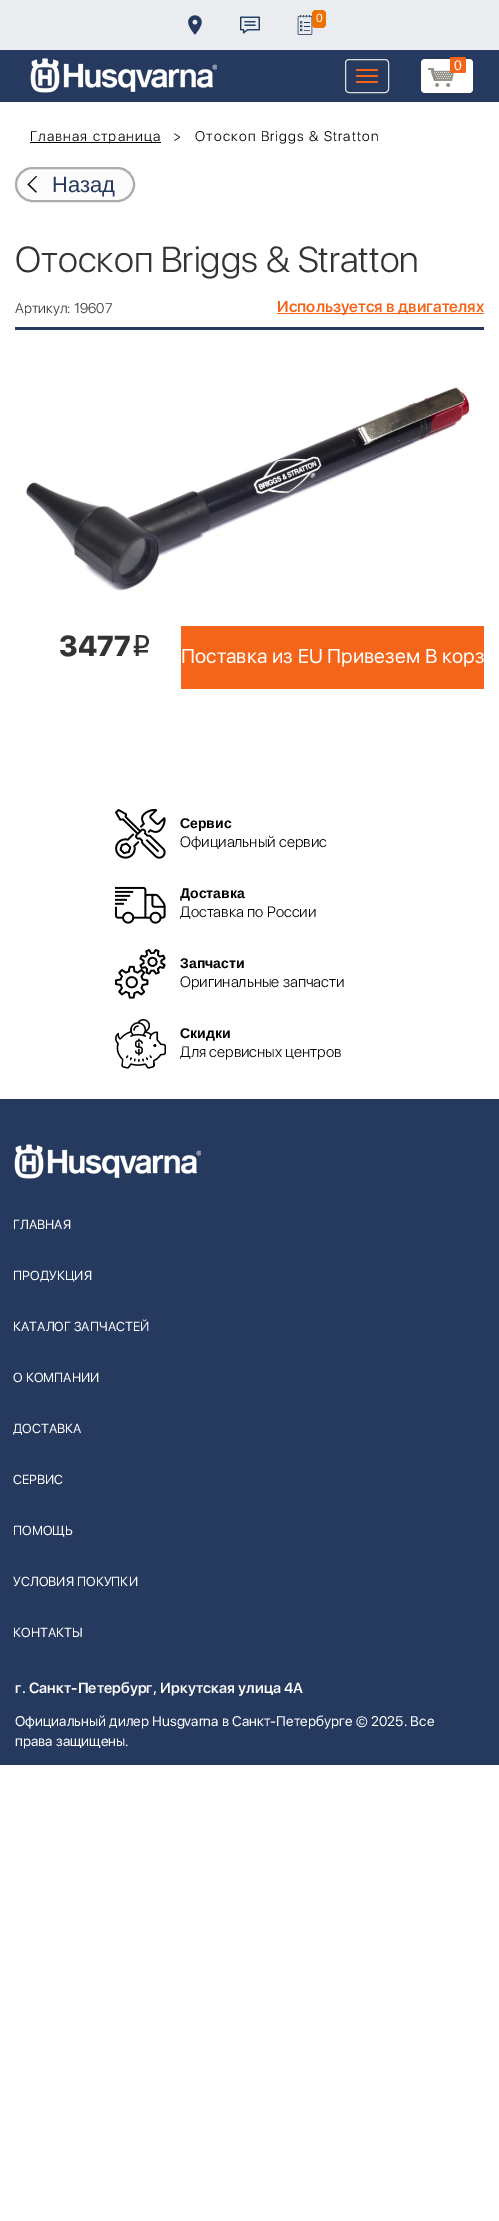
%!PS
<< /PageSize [499 2221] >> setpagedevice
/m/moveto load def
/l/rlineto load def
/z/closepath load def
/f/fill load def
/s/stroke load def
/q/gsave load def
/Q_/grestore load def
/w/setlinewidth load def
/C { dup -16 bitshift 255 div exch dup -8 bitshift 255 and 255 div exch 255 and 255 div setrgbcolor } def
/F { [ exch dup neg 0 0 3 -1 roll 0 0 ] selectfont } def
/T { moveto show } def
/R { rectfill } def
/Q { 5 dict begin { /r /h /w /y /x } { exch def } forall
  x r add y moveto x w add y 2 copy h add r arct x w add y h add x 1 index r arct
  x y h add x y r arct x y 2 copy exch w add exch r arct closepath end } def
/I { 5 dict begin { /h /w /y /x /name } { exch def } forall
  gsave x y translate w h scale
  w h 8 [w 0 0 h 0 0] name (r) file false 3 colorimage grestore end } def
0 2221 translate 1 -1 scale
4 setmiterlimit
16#FFFFFF C
0 0 499 2221 R
16#EAECF0 C
0 0 499 50 R
(1.rgb) 188 15 14 20 I
(2.rgb) 240 16 20 18 I
(3.rgb) 297 15 16 20 I
16#ED7102 C
312 10 14 18 4 Q f
/LiberationSans-Regular 12 F
16#FFFFFF C
(0) 316 22 T
16#263A5F C
0 50 499 52 R
(4.rgb) 30 58 187 35 I
16#DDDDDD C
345.5 59.5 43 33 3.5 Q s
16#F4651A C
356 69 22 2 1 Q f
356 75 22 2 1 Q f
356 81 22 2 1 Q f
16#FFFFFF C
421 59 52 34 4 Q f
(5.rgb) 428 68 26 19 I
16#F4651A C
450 57 16 16 2 Q f
/LiberationSans-Regular 14 F
16#FFFFFF C
(0) 454 70 T
16#000000 C
30 142 131 1 R
/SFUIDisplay-Light 14 F
30 141 m 1.1 0 (Главная страница) ashow
173 141 m 1.1 0 (>) ashow
195 141 m 1.1 0 (Отоскоп Briggs & Stratton) ashow
16#FCFCFC C
16 168 118 33 16.5 Q q f Q_
16#ACACAC C
2 w
s
16#000000 C
27.5 184.5 m 8.5 -8.5 l 1 .5 l -8.5 8.5 l z f
27.5 184.5 m 1 -1 l 8.5 8.5 l -1 .5 l z f
/LiberationSans-Regular 22 F
16#263A5F C
(Назад) 52 192 T
/SFUIDisplay-Light 36 F
16#333333 C
(Отоскоп Briggs & Stratton) 15 272 T
/SFUIDisplay-Light 14 F
(Артикул: 19607) 15 313 T
16#F4651A C
277 313 207 1 R
/SFUIDisplay-SemiBold 16 F
(Используется в двигателях) 277 312 T
16#263A5F C
15 327 469 3 R
(6.rgb) 25 386 446 205 I
/SFUIDisplay-Black 30 F
16#333333 C
(3477) 59 656 T
/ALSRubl-Regular 30 F
(i) 131 656 T
16#F4651A C
181 626 303 63 R
/SFUIDisplay-Regular 20 F
16#FFFFFF C
(Поставка из EU Привезем В корз) 181 663 T
(7.rgb) 115 809 51 50 I
/LiberationSans-Bold 14 F
16#000000 C
(Сервис) 180 828 T
/SFUIDisplay-Light 15 F
(Официальный сервис) 180 847 T
(8.rgb) 115 886 51 38 I
/LiberationSans-Bold 14 F
(Доставка) 180 898 T
/SFUIDisplay-Light 15 F
(Доставка по России) 180 917 T
(9.rgb) 115 949 51 50 I
/LiberationSans-Bold 14 F
(Запчасти) 180 968 T
/SFUIDisplay-Light 15 F
(Оригинальные запчасти) 180 987 T
(10.rgb) 115 1019 51 50 I
/LiberationSans-Bold 14 F
(Скидки) 180 1038 T
/SFUIDisplay-Light 15 F
(Для сервисных центров) 180 1057 T
16#263A5F C
0 1099 499 666 R
(4.rgb) 14 1144 187 35 I
/SFUIDisplay-Regular 13 F
16#FFFFFF C
(ГЛАВНАЯ) 13 1229 T
(ПРОДУКЦИЯ) 13 1280 T
(КАТАЛОГ ЗАПЧАСТЕЙ) 13 1331 T
(О КОМПАНИИ) 13 1382 T
(ДОСТАВКА) 13 1433 T
(СЕРВИС) 13 1484 T
(ПОМОЩЬ) 13 1535 T
(УСЛОВИЯ ПОКУПКИ) 13 1586 T
(КОНТАКТЫ) 13 1637 T
/SFUIDisplay-SemiBold 15 F
(г. Санкт-Петербург, Иркутская улица 4А) 15 1693 T
/SFUIDisplay-Regular 14 F
(Официальный дилер Husgvarna в Санкт-Петербурге © 2025. Все) 15 1726 T
(права защищены.) 15 1746 T
showpage
